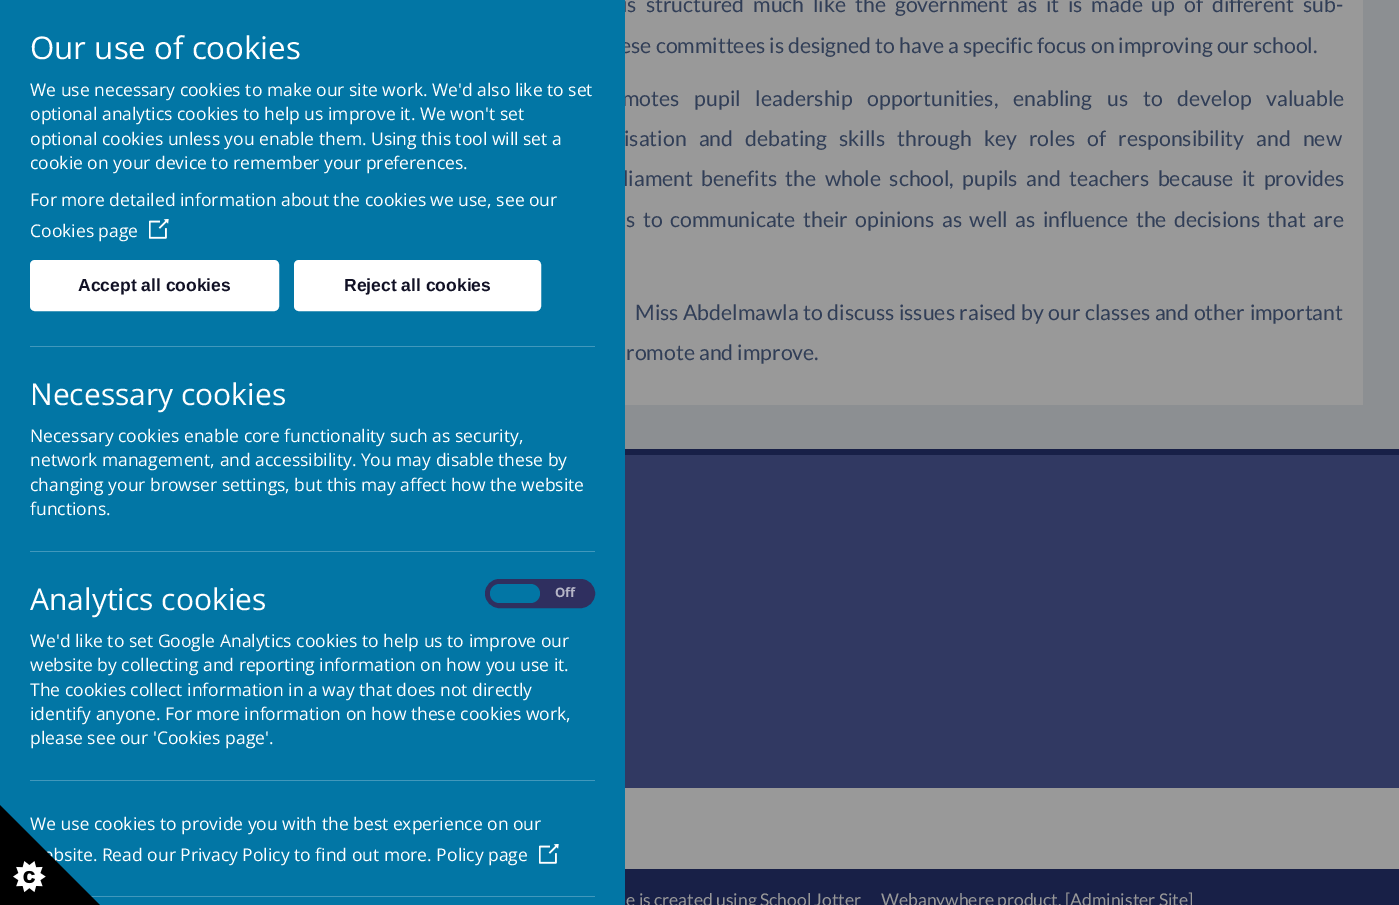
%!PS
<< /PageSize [1399 905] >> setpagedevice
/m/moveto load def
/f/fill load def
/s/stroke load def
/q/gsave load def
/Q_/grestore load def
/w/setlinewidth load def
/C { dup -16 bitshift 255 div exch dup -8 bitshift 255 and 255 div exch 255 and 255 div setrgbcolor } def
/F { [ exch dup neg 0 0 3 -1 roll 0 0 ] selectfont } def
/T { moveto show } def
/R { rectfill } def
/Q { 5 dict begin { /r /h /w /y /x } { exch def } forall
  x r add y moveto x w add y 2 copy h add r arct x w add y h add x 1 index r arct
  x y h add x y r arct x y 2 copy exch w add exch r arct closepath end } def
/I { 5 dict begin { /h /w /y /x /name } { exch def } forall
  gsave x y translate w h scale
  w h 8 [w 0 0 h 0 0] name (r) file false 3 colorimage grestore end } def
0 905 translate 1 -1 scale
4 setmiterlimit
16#999999 C
0 0 1399 905 R
16#8C8F92 C
625 0 774 449 R
16#999999 C
625 0 738 405 R
/Lato-Regular 21.25 F
16#313E57 C
622 12 m 4.75 0 32 (is structured much like the government as it is made up of different sub-) widthshow
(ese committees is designed to have a specific focus on improving our school.) 620 53 T
622 106 m 10.75 0 32 (motes pupil leadership opportunities, enabling us to develop valuable) widthshow
624 146 m 8 0 32 (isation and debating skills through key roles of responsibility and new) widthshow
623 186 m 4.25 0 32 (liament benefits the whole school, pupils and teachers because it provides) widthshow
626 227 m 3.4 0 32 (s to communicate their opinions as well as influence the decisions that are) widthshow
635 320 m .5 0 32 (Miss Abdelmawla to discuss issues raised by our classes and other important) widthshow
(romote and improve.) 626 360 T
16#182047 C
625 869 774 36 R
16#0276A5 C
0 0 625 905 R
/OpenSans-Regular 31.25 F
16#FFFFFF C
(Our use of cookies) 30 59 T
/OpenSans-Regular 17.5 F
(We use necessary cookies to make our site work. We'd also like to set) 30 96 T
(optional analytics cookies to help us improve it. We won't set) 30 120 T
(optional cookies unless you enable them. Using this tool will set a) 30 145 T
(cookie on your device to remember your preferences.) 30 169 T
(For more detailed information about the cookies we use, see our) 30 206 T
(Cookies page) 30 237 T
(1.rgb) 149 219 20 20 I
31.5 261.5 246 48 3.5 Q q f Q_
3 w
s
/LiberationSans-Bold 17.5 F
16#111125 C
(Accept all cookies) 78 291 T
16#FFFFFF C
295.5 261.5 244 48 3.5 Q q f Q_
s
16#111125 C
(Reject all cookies) 344 291 T
16#4198BC C
30 346 565 1 R
/OpenSans-Regular 30 F
16#FFFFFF C
(Necessary cookies) 30 405 T
/OpenSans-Regular 17.5 F
(Necessary cookies enable core functionality such as security,) 30 442 T
(network management, and accessibility. You may disable these by) 30 466 T
(changing your browser settings, but this may affect how the website) 30 491 T
(functions.) 30 515 T
16#4198BC C
30 551 565 1 R
/OpenSans-Regular 30 F
16#FFFFFF C
(Analytics cookies) 30 610 T
16#2F2F5F C
487.5 581.5 105 24 12 Q q f Q_
5 w
s
16#0276A5 C
490 584 50 19 9.5 Q f
/OpenSans-Bold 13 F
16#B6B6C7 C
(Off) 555 597 T
/OpenSans-Regular 17.5 F
16#FFFFFF C
(We'd like to set Google Analytics cookies to help us to improve our) 30 647 T
(website by collecting and reporting information on how you use it.) 30 671 T
(The cookies collect information in a way that does not directly) 30 696 T
(identify anyone. For more information on how these cookies work,) 30 720 T
(please see our 'Cookies page'.) 30 744 T
16#4198BC C
30 780 565 1 R
16#FFFFFF C
(We use cookies to provide you with the best experience on our) 30 830 T
(bsite. Read our Privacy Policy to find out more. Policy page) 53 861 T
(1.rgb) 539 844 20 20 I
16#4198BC C
91 896 504 1 R
(2.rgb) 0 805 100 100 I
/Lato-Regular 17.5 F
16#999999 C
(e is created using School Jotter) 626 906 T
(Webanywhere product. [Administer Site]) 881 906 T
16#313962 C
625 455 774 333 R
16#182047 C
625 449 774 6 R
showpage
